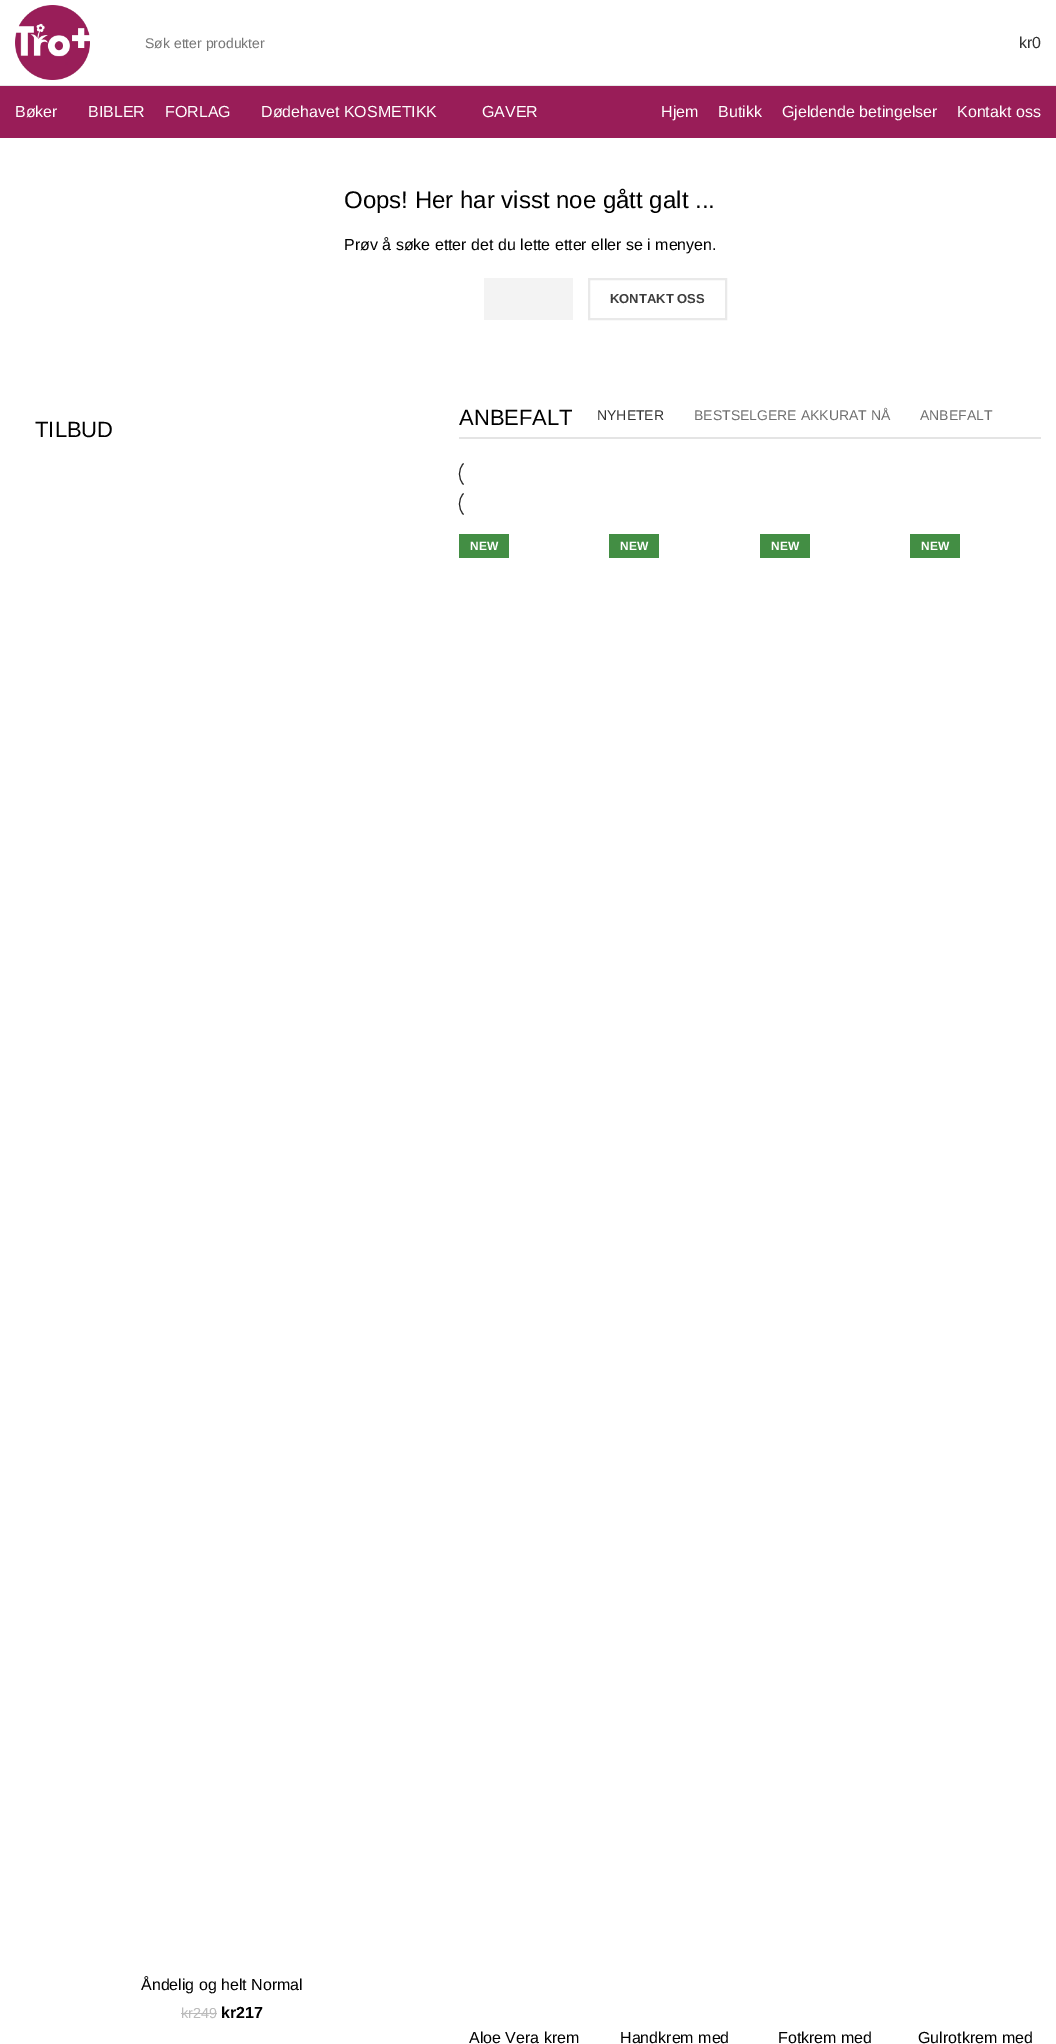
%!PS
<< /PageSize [1056 2044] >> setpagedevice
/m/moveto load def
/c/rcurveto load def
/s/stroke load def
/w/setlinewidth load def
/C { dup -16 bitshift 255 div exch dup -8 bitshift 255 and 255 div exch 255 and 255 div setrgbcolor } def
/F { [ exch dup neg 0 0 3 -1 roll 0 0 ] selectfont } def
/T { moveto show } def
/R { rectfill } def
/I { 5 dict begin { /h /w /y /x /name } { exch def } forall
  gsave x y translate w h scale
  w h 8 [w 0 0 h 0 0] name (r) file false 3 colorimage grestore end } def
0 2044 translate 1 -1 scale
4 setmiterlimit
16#FFFFFF C
0 0 1056 2044 R
16#E8E8E8 C
0 85 1056 1 R
(1.rgb) 15 5 75 75 I
/LiberationSans-Regular 14 F
16#767676 C
(Søk etter produkter) 145 48 T
/LiberationSans-Regular 16 F
16#333333 C
(kr0) 1019 48 T
16#991D58 C
0 86 1056 52 R
16#FFFFFF C
(Bøker) 15 117 T
(BIBLER) 88 117 T
(FORLAG) 165 117 T
(Dødehavet KOSMETIKK) 261 117 T
(GAVER) 482 117 T
(Hjem) 661 117 T
(Butikk) 718 117 T
(Gjeldende betingelser) 782 117 T
(Kontakt oss) 957 117 T
/LiberationSans-Regular 24 F
16#000000 C
(Oops! Her har visst noe gått galt ...) 344 208 T
/LiberationSans-Regular 16 F
(Prøv å søke etter det du lette etter eller se i menyen.) 344 250 T
16#F3F3F3 C
484 278 89 42 R
16#E9E9E9 C
2 w
589 279 137 40 rectstroke
/LiberationSans-Bold 13 F
16#3E3E3E C
(KONTAKT OSS) 610 303 T
/LiberationSans-Regular 22 F
16#000000 C
(TILBUD) 35 437 T
/LiberationSans-Regular 16 F
(Åndelig og helt Normal) 141 1990 T
/LiberationSans-Regular 14.5 F
16#BBBBBB C
(kr249) 181 2018 T
181 2013 36 1 R
/LiberationSans-Bold 16 F
16#000000 C
(kr217) 221 2018 T
16#E4E4E4 C
459 437 582 2 R
/LiberationSans-Regular 22 F
16#000000 C
(ANBEFALT) 459 425 T
/LiberationSans-Regular 14 F
16#333333 C
(NYHETER) 597 420 T
16#707070 C
(BESTSELGERE AKKURAT NÅ) 694 420 T
(ANBEFALT) 920 420 T
16#242424 C
1 w
463.5 484.5 m -5.5 -6 -5.5 -15 0 -21 c 463.5 514.5 m -5.5 -6 -5.5 -15 0 -21 c s
16#438E44 C
459 534 50 24 R
/LiberationSans-Bold 12 F
16#FFFFFF C
(NEW) 470 550 T
/LiberationSans-Regular 16 F
16#000000 C
(Aloe Vera krem) 469 2043 T
16#438E44 C
609 534 50 24 R
/LiberationSans-Bold 12 F
16#FFFFFF C
(NEW) 620 550 T
/LiberationSans-Regular 16 F
16#000000 C
(Handkrem med) 620 2043 T
16#438E44 C
760 534 50 24 R
/LiberationSans-Bold 12 F
16#FFFFFF C
(NEW) 771 550 T
/LiberationSans-Regular 16 F
16#000000 C
(Fotkrem med) 778 2043 T
16#438E44 C
910 534 50 24 R
/LiberationSans-Bold 12 F
16#FFFFFF C
(NEW) 921 550 T
/LiberationSans-Regular 16 F
16#000000 C
(Gulrotkrem med) 918 2043 T
showpage
